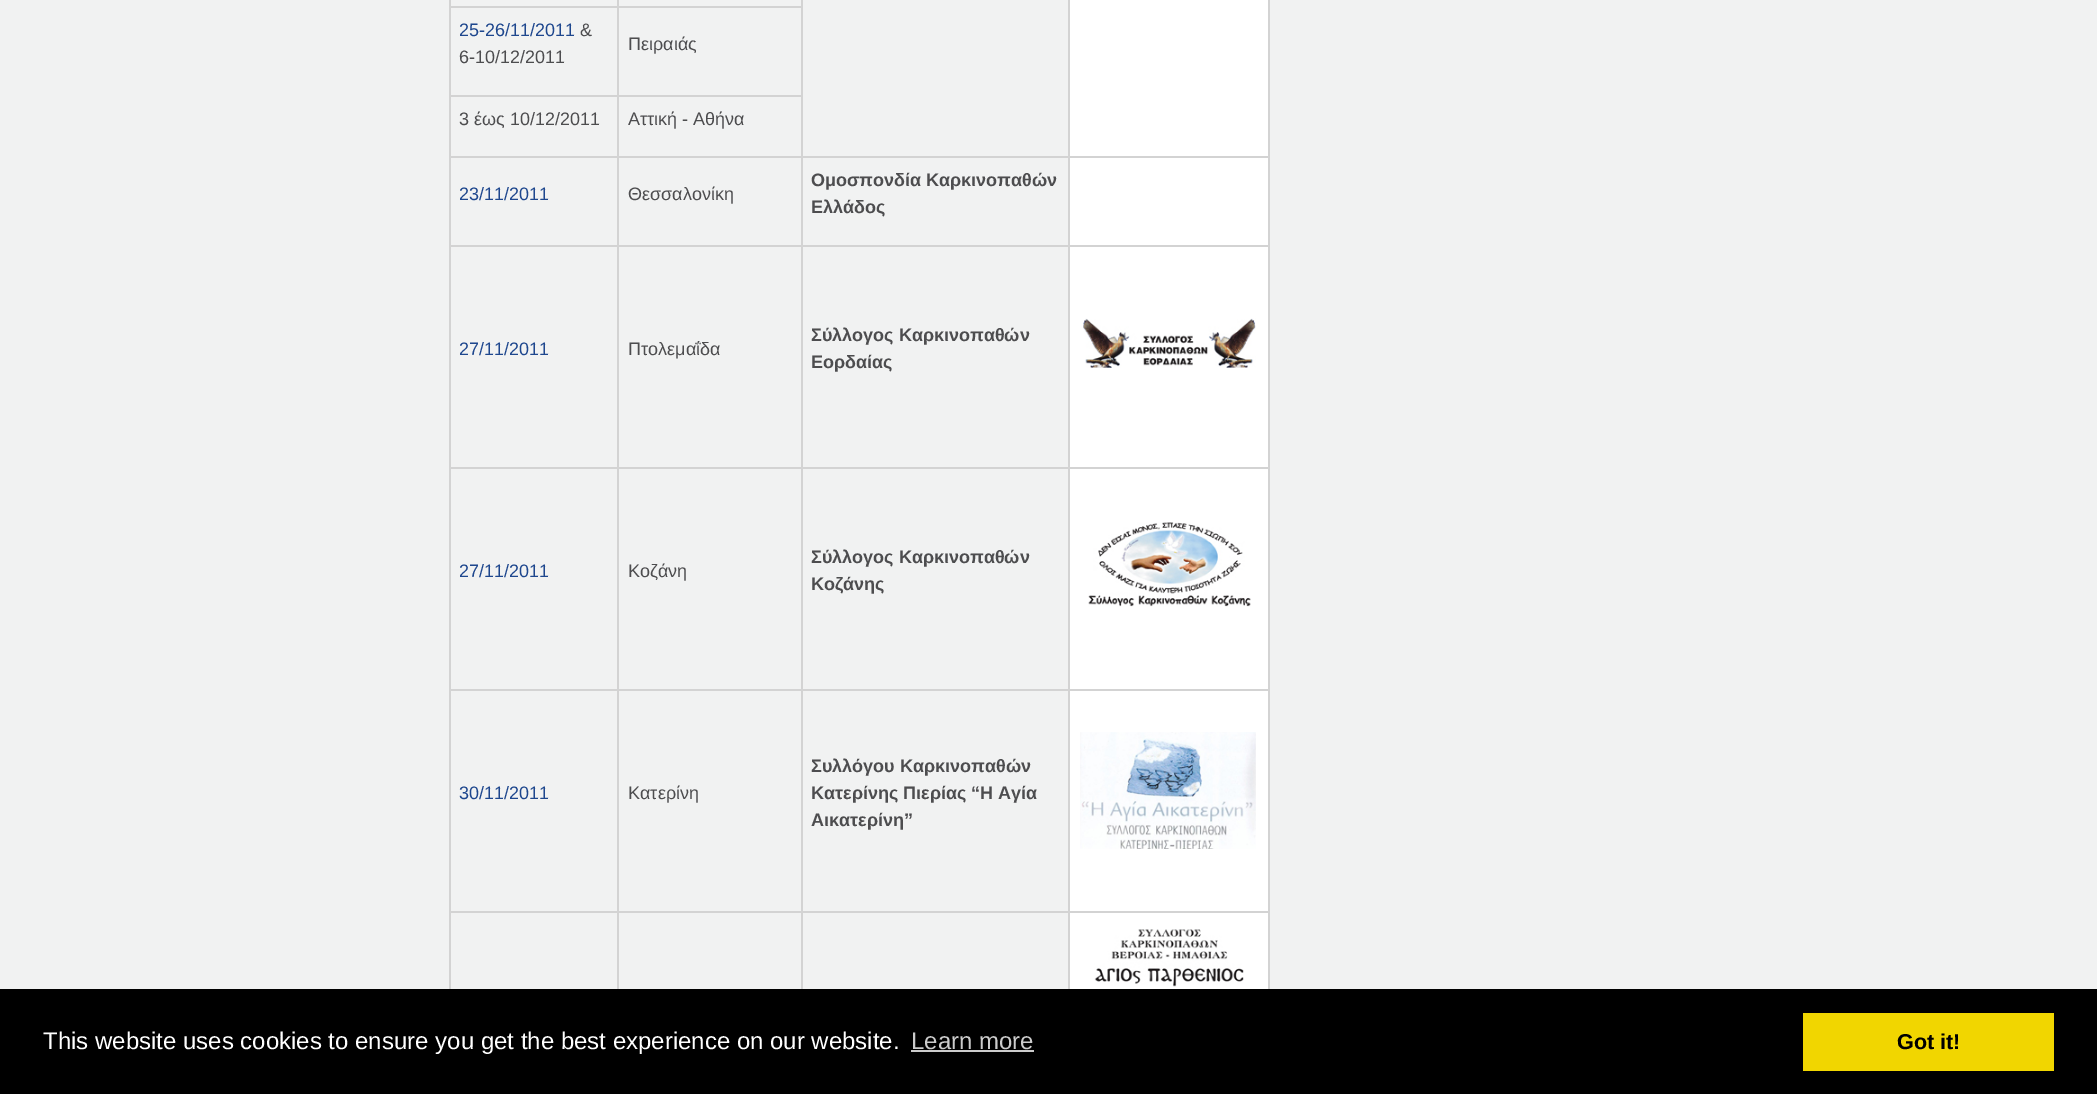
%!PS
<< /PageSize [2097 1094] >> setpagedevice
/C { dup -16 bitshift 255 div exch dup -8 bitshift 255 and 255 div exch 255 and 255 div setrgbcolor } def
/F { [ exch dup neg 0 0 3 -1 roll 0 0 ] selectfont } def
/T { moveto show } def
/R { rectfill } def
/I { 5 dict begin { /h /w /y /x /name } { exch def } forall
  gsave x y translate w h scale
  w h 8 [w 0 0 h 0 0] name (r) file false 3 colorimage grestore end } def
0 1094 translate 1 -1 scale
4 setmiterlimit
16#F1F2F2 C
0 0 2097 1094 R
16#D3D3D3 C
617 6 186 2 R
617 95 186 2 R
1068 156 201 2 R
1068 245 201 2 R
1068 467 201 2 R
1068 689 201 2 R
1068 911 201 2 R
1068 911 2 78 R
801 911 269 2 R
1068 689 2 223 R
801 689 269 2 R
1068 467 2 223 R
801 467 269 2 R
1068 245 2 223 R
801 245 269 2 R
1068 156 2 90 R
801 156 269 2 R
801 911 2 78 R
617 911 186 2 R
801 689 2 223 R
617 689 186 2 R
801 467 2 223 R
617 467 186 2 R
801 245 2 223 R
617 245 186 2 R
801 156 2 90 R
617 156 186 2 R
617 911 2 78 R
449 911 169 2 R
617 689 2 223 R
449 689 169 2 R
617 467 2 223 R
449 467 169 2 R
617 245 2 223 R
449 245 169 2 R
617 156 2 90 R
449 156 169 2 R
617 95 2 63 R
449 95 169 2 R
617 6 2 90 R
449 6 169 2 R
617 0 2 8 R
16#FFFFFF C
1070 0 198 156 R
16#D3D3D3 C
1068 0 2 158 R
449 911 2 78 R
449 689 2 223 R
449 467 2 223 R
449 245 2 223 R
449 156 2 90 R
449 95 2 63 R
449 0 2 96 R
/LiberationSans-Regular 18 F
16#1E478E C
(25-26/11/2011) 459 36 T
16#4D4D4F C
(&) 580 36 T
(6-10/12/2011) 459 63 T
16#D3D3D3 C
801 95 2 63 R
801 0 2 96 R
16#4D4D4F C
(Πειραιάς) 628 50 T
(3 έως 10/12/2011) 459 125 T
(Αττική - Αθήνα) 628 125 T
16#1E478E C
(23/11/2011) 459 200 T
16#4D4D4F C
(Θεσσαλονίκη) 628 200 T
/LiberationSans-Bold 18 F
(Ομοσπονδία Καρκινοπαθών) 811 186 T
(Ελλάδος) 811 213 T
16#FFFFFF C
1070 158 198 87 R
16#D3D3D3 C
1268 911 2 78 R
1268 689 2 223 R
1268 467 2 223 R
1268 245 2 223 R
1268 0 2 246 R
/LiberationSans-Regular 18 F
16#1E478E C
(27/11/2011) 459 355 T
16#4D4D4F C
(Πτολεμαΐδα) 628 355 T
/LiberationSans-Bold 18 F
(Σύλλογος Καρκινοπαθών) 811 341 T
(Εορδαίας) 811 368 T
16#FFFFFF C
1070 247 198 220 R
(1.rgb) 1083 318 173 50 I
/LiberationSans-Regular 18 F
16#1E478E C
(27/11/2011) 459 577 T
16#4D4D4F C
(Κοζάνη) 628 577 T
/LiberationSans-Bold 18 F
(Σύλλογος Καρκινοπαθών) 811 563 T
(Κοζάνης) 811 590 T
16#FFFFFF C
1070 469 198 220 R
(2.rgb) 1088 522 163 85 I
/LiberationSans-Regular 18 F
16#1E478E C
(30/11/2011) 459 799 T
16#4D4D4F C
(Κατερίνη) 628 799 T
/LiberationSans-Bold 18 F
(Συλλόγου Καρκινοπαθών) 811 772 T
(Κατερίνης Πιερίας “Η Αγία) 811 799 T
(Αικατερίνη”) 811 826 T
16#FFFFFF C
1070 691 198 220 R
(3.rgb) 1080 732 176 117 I
1070 913 198 76 R
(4.rgb) 1094 929 150 60 I
16#000000 C
0 989 2097 105 R
/LiberationSans-Regular 24 F
16#FFFFFF C
(This website uses cookies to ensure you get the best experience on our website.) 43 1049 T
16#CCCCCC C
(Learn more) 911 1049 T
911 1050 123 2 R
16#F1D600 C
1803 1013 251 58 R
/LiberationSans-Bold 21.5 F
16#000000 C
(Got it!) 1897 1049 T
showpage
